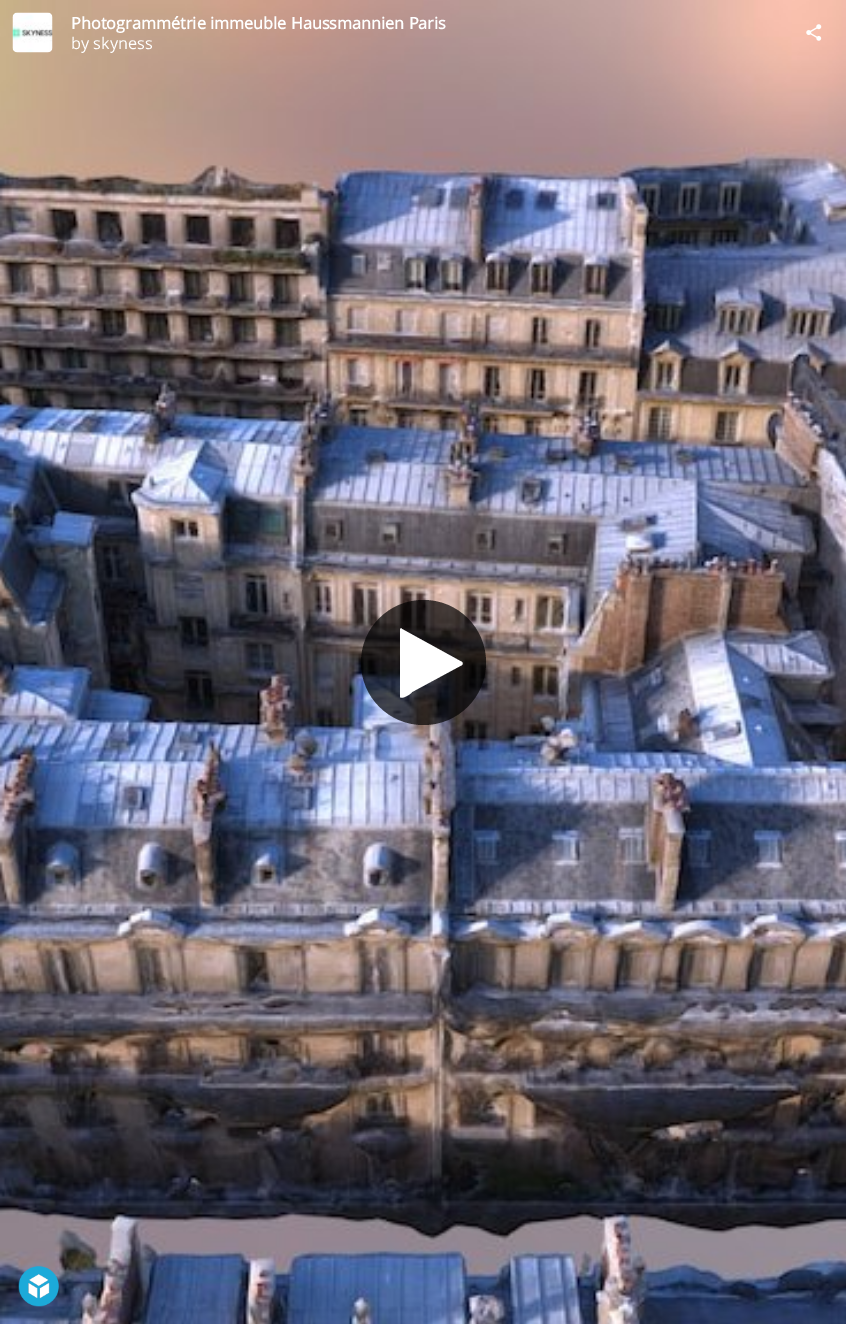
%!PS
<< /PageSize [846 1324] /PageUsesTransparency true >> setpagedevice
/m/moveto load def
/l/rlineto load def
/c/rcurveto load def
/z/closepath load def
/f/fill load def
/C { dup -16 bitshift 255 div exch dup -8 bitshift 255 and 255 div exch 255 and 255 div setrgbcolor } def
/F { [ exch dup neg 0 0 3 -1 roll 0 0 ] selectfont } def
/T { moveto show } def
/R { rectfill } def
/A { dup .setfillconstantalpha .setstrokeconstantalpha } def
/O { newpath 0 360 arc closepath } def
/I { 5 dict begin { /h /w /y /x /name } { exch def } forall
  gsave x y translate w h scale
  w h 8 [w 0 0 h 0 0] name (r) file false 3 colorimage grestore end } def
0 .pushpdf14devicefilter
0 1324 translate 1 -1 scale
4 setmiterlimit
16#FFFFFF C
0 0 846 1324 R
(1.rgb) 0 0 846 1324 I
0.7 A
16#000000 C
423.5 662.5 62.5 O f
1 A
16#FFFFFF C
462 665 m -50 27 l 0 1 -10 8 -12 5 c 0 -67 l 0 -2 2 -2 2 -1 c 60 33 l 1 1 1 2 0 3 c z f
(2.rgb) 18 1266 41 41 I
(3.rgb) 12 12 41 41 I
/OpenSans-Bold 16.25 F
(Photogrammétrie immeuble Haussmannien Paris) 71 29 T
/OpenSans-Regular 16.25 F
(by skyness) 71 49 T
(4.rgb) 806 24 16 17 I
.poppdf14devicefilter showpage
